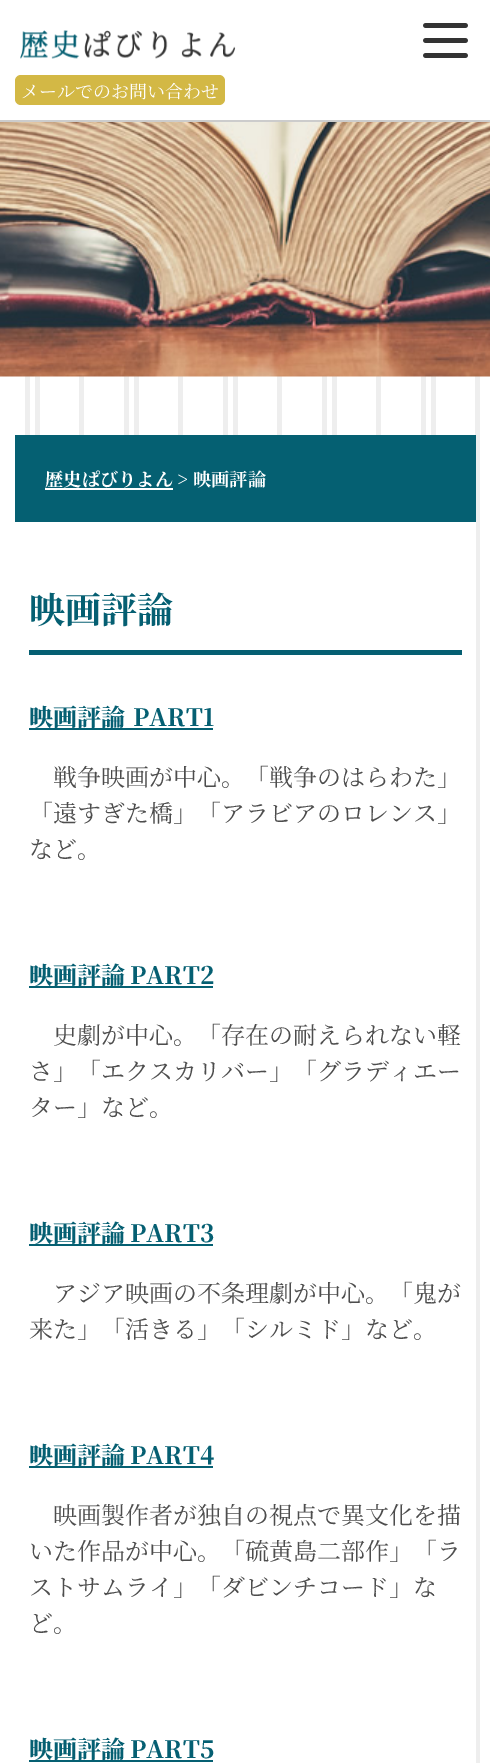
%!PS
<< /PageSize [490 1763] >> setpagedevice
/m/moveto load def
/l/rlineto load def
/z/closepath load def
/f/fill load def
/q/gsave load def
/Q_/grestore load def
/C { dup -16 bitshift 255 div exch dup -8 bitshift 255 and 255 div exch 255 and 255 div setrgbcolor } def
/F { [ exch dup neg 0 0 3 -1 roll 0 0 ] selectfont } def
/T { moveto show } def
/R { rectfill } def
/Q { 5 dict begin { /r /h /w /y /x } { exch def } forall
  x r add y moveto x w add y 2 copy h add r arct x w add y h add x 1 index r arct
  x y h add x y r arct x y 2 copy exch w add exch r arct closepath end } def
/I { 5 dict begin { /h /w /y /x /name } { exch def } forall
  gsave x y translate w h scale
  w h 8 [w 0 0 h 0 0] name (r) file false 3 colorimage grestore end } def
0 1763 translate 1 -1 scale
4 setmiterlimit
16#FFFFFF C
0 0 490 1763 R
q 25 376 m 455 0 l 0 1387 l -455 0 l z clip newpath
<< /ShadingType 2 /ColorSpace /DeviceRGB /Coords [0 882 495 882] /Extend [true true] /Function << /FunctionType 3 /Domain [0 1] /Functions [<< /FunctionType 2 /Domain [0 1] /C0 [1 1 1] /C1 [1 1 1] /N 1 >> << /FunctionType 2 /Domain [0 1] /C0 [1 1 1] /C1 [1 1 1] /N 1 >> << /FunctionType 2 /Domain [0 1] /C0 [1 1 1] /C1 [1 1 1] /N 1 >> << /FunctionType 2 /Domain [0 1] /C0 [.933 .933 .933] /C1 [.933 .933 .933] /N 1 >> << /FunctionType 2 /Domain [0 1] /C0 [1 1 1] /C1 [1 1 1] /N 1 >> << /FunctionType 2 /Domain [0 1] /C0 [.933 .933 .933] /C1 [.933 .933 .933] /N 1 >> << /FunctionType 2 /Domain [0 1] /C0 [1 1 1] /C1 [1 1 1] /N 1 >> << /FunctionType 2 /Domain [0 1] /C0 [1 1 1] /C1 [1 1 1] /N 1 >> << /FunctionType 2 /Domain [0 1] /C0 [1 1 1] /C1 [1 1 1] /N 1 >> << /FunctionType 2 /Domain [0 1] /C0 [1 1 1] /C1 [1 1 1] /N 1 >> << /FunctionType 2 /Domain [0 1] /C0 [1 1 1] /C1 [1 1 1] /N 1 >> << /FunctionType 2 /Domain [0 1] /C0 [.933 .933 .933] /C1 [.933 .933 .933] /N 1 >> << /FunctionType 2 /Domain [0 1] /C0 [1 1 1] /C1 [1 1 1] /N 1 >> << /FunctionType 2 /Domain [0 1] /C0 [1 1 1] /C1 [1 1 1] /N 1 >> << /FunctionType 2 /Domain [0 1] /C0 [1 1 1] /C1 [1 1 1] /N 1 >> << /FunctionType 2 /Domain [0 1] /C0 [1 1 1] /C1 [1 1 1] /N 1 >> << /FunctionType 2 /Domain [0 1] /C0 [1 1 1] /C1 [1 1 1] /N 1 >> << /FunctionType 2 /Domain [0 1] /C0 [.933 .933 .933] /C1 [.933 .933 .933] /N 1 >> << /FunctionType 2 /Domain [0 1] /C0 [1 1 1] /C1 [1 1 1] /N 1 >> << /FunctionType 2 /Domain [0 1] /C0 [.933 .933 .933] /C1 [.933 .933 .933] /N 1 >> << /FunctionType 2 /Domain [0 1] /C0 [1 1 1] /C1 [1 1 1] /N 1 >> << /FunctionType 2 /Domain [0 1] /C0 [1 1 1] /C1 [1 1 1] /N 1 >> << /FunctionType 2 /Domain [0 1] /C0 [1 1 1] /C1 [1 1 1] /N 1 >> << /FunctionType 2 /Domain [0 1] /C0 [1 1 1] /C1 [1 1 1] /N 1 >> << /FunctionType 2 /Domain [0 1] /C0 [1 1 1] /C1 [1 1 1] /N 1 >> << /FunctionType 2 /Domain [0 1] /C0 [.933 .933 .933] /C1 [.933 .933 .933] /N 1 >> << /FunctionType 2 /Domain [0 1] /C0 [1 1 1] /C1 [1 1 1] /N 1 >> << /FunctionType 2 /Domain [0 1] /C0 [1 1 1] /C1 [1 1 1] /N 1 >> << /FunctionType 2 /Domain [0 1] /C0 [1 1 1] /C1 [1 1 1] /N 1 >> << /FunctionType 2 /Domain [0 1] /C0 [1 1 1] /C1 [1 1 1] /N 1 >> << /FunctionType 2 /Domain [0 1] /C0 [1 1 1] /C1 [1 1 1] /N 1 >> << /FunctionType 2 /Domain [0 1] /C0 [.933 .933 .933] /C1 [.933 .933 .933] /N 1 >> << /FunctionType 2 /Domain [0 1] /C0 [1 1 1] /C1 [1 1 1] /N 1 >> << /FunctionType 2 /Domain [0 1] /C0 [.933 .933 .933] /C1 [.933 .933 .933] /N 1 >> << /FunctionType 2 /Domain [0 1] /C0 [1 1 1] /C1 [1 1 1] /N 1 >> << /FunctionType 2 /Domain [0 1] /C0 [1 1 1] /C1 [1 1 1] /N 1 >> << /FunctionType 2 /Domain [0 1] /C0 [1 1 1] /C1 [1 1 1] /N 1 >> << /FunctionType 2 /Domain [0 1] /C0 [1 1 1] /C1 [1 1 1] /N 1 >> << /FunctionType 2 /Domain [0 1] /C0 [1 1 1] /C1 [1 1 1] /N 1 >> << /FunctionType 2 /Domain [0 1] /C0 [.933 .933 .933] /C1 [.933 .933 .933] /N 1 >> << /FunctionType 2 /Domain [0 1] /C0 [1 1 1] /C1 [1 1 1] /N 1 >> << /FunctionType 2 /Domain [0 1] /C0 [1 1 1] /C1 [1 1 1] /N 1 >> << /FunctionType 2 /Domain [0 1] /C0 [1 1 1] /C1 [1 1 1] /N 1 >> << /FunctionType 2 /Domain [0 1] /C0 [1 1 1] /C1 [1 1 1] /N 1 >> << /FunctionType 2 /Domain [0 1] /C0 [1 1 1] /C1 [1 1 1] /N 1 >> << /FunctionType 2 /Domain [0 1] /C0 [.933 .933 .933] /C1 [.933 .933 .933] /N 1 >> << /FunctionType 2 /Domain [0 1] /C0 [1 1 1] /C1 [1 1 1] /N 1 >> << /FunctionType 2 /Domain [0 1] /C0 [.933 .933 .933] /C1 [.933 .933 .933] /N 1 >> << /FunctionType 2 /Domain [0 1] /C0 [1 1 1] /C1 [1 1 1] /N 1 >> << /FunctionType 2 /Domain [0 1] /C0 [1 1 1] /C1 [1 1 1] /N 1 >> << /FunctionType 2 /Domain [0 1] /C0 [1 1 1] /C1 [1 1 1] /N 1 >> << /FunctionType 2 /Domain [0 1] /C0 [1 1 1] /C1 [1 1 1] /N 1 >> << /FunctionType 2 /Domain [0 1] /C0 [1 1 1] /C1 [1 1 1] /N 1 >> << /FunctionType 2 /Domain [0 1] /C0 [.933 .933 .933] /C1 [.933 .933 .933] /N 1 >> << /FunctionType 2 /Domain [0 1] /C0 [1 1 1] /C1 [1 1 1] /N 1 >> << /FunctionType 2 /Domain [0 1] /C0 [1 1 1] /C1 [1 1 1] /N 1 >> << /FunctionType 2 /Domain [0 1] /C0 [1 1 1] /C1 [1 1 1] /N 1 >> << /FunctionType 2 /Domain [0 1] /C0 [1 1 1] /C1 [1 1 1] /N 1 >> << /FunctionType 2 /Domain [0 1] /C0 [1 1 1] /C1 [1 1 1] /N 1 >> << /FunctionType 2 /Domain [0 1] /C0 [.933 .933 .933] /C1 [.933 .933 .933] /N 1 >> << /FunctionType 2 /Domain [0 1] /C0 [1 1 1] /C1 [1 1 1] /N 1 >> << /FunctionType 2 /Domain [0 1] /C0 [.933 .933 .933] /C1 [.933 .933 .933] /N 1 >> << /FunctionType 2 /Domain [0 1] /C0 [1 1 1] /C1 [1 1 1] /N 1 >> << /FunctionType 2 /Domain [0 1] /C0 [1 1 1] /C1 [1 1 1] /N 1 >> << /FunctionType 2 /Domain [0 1] /C0 [1 1 1] /C1 [1 1 1] /N 1 >> << /FunctionType 2 /Domain [0 1] /C0 [1 1 1] /C1 [1 1 1] /N 1 >> << /FunctionType 2 /Domain [0 1] /C0 [1 1 1] /C1 [1 1 1] /N 1 >> << /FunctionType 2 /Domain [0 1] /C0 [.933 .933 .933] /C1 [.933 .933 .933] /N 1 >> << /FunctionType 2 /Domain [0 1] /C0 [1 1 1] /C1 [1 1 1] /N 1 >> << /FunctionType 2 /Domain [0 1] /C0 [1 1 1] /C1 [1 1 1] /N 1 >>] /Bounds [.02 .04 .05 .06 .07 .08 .09 .11 .13 .15 .16 .17 .18 .2 .22 .24 .25 .26 .27 .28 .29 .31 .33 .35 .36 .37 .38 .4 .42 .44 .45 .46 .47 .48 .49 .51 .53 .55 .56 .57 .58 .6 .62 .64 .65 .66 .67 .68 .69 .71 .73 .75 .76 .77 .78 .8 .82 .84 .85 .86 .87 .88 .89 .91 .93 .95 .96 .97 .98] /Encode [0 1 0 1 0 1 0 1 0 1 0 1 0 1 0 1 0 1 0 1 0 1 0 1 0 1 0 1 0 1 0 1 0 1 0 1 0 1 0 1 0 1 0 1 0 1 0 1 0 1 0 1 0 1 0 1 0 1 0 1 0 1 0 1 0 1 0 1 0 1 0 1 0 1 0 1 0 1 0 1 0 1 0 1 0 1 0 1 0 1 0 1 0 1 0 1 0 1 0 1 0 1 0 1 0 1 0 1 0 1 0 1 0 1 0 1 0 1 0 1 0 1 0 1 0 1 0 1 0 1 0 1 0 1 0 1 0 1 0 1] >> >> shfill Q_
16#CCCCCC C
0 120 490 2 R
(1.rgb) 20 30 216 29 I
(2.rgb) 423 23 45 35 I
16#D3B845 C
15 75 210 30 6 Q f
/NotoSerifJP-Regular 18 F
16#FFFFFF C
(メールでのお問い合わせ) 21 98 T
(3.rgb) 0 122 490 255 I
25 522 451 1241 R
16#056072 C
15 435 461 87 R
/NotoSerifJP-Bold 18.25 F
16#FFFFFF C
(歴史ぱびりよん > 映画評論) 45 486 T
45 488 128 2 R
16#055F72 C
29 650 433 5 R
/NotoSerifJP-Bold 36 F
(映画評論) 29 623 T
16#056072 C
29 728 184 2 R
/NotoSerifJP-ExtraBold 24 F
16#055F72 C
29 726 m 2 0 32 (映画評論 PART1) widthshow
/NotoSerifJP-Regular 24 F
16#4D4D4D C
(戦争映画が中心。「戦争のはらわた」) 53 786 T
(「遠すぎた橋」「アラビアのロレンス」) 29 822 T
(など。) 29 858 T
16#056072 C
29 986 184 2 R
/NotoSerifJP-ExtraBold 24 F
16#055F72 C
29 984 m -1 0 32 (映画評論 PART2) widthshow
/NotoSerifJP-Regular 24 F
16#4D4D4D C
(史劇が中心。「存在の耐えられない軽) 53 1044 T
(さ」「エクスカリバー」「グラディエー) 29 1080 T
(ター」など。) 29 1116 T
16#056072 C
29 1244 184 2 R
/NotoSerifJP-ExtraBold 24 F
16#055F72 C
29 1242 m -1 0 32 (映画評論 PART3) widthshow
/NotoSerifJP-Regular 24 F
16#4D4D4D C
(アジア映画の不条理劇が中心。「鬼が) 53 1302 T
(来た」「活きる」「シルミド」など。) 29 1338 T
16#056072 C
29 1466 184 2 R
/NotoSerifJP-ExtraBold 24 F
16#055F72 C
29 1464 m -1 0 32 (映画評論 PART4) widthshow
/NotoSerifJP-Regular 24 F
16#4D4D4D C
(映画製作者が独自の視点で異文化を描) 53 1524 T
(いた作品が中心。「硫黄島二部作」「ラ) 29 1560 T
(ストサムライ」「ダビンチコード」な) 29 1596 T
(ど。) 29 1632 T
16#056072 C
29 1760 184 2 R
/NotoSerifJP-ExtraBold 24 F
16#055F72 C
29 1758 m -1 0 32 (映画評論 PART5) widthshow
showpage
